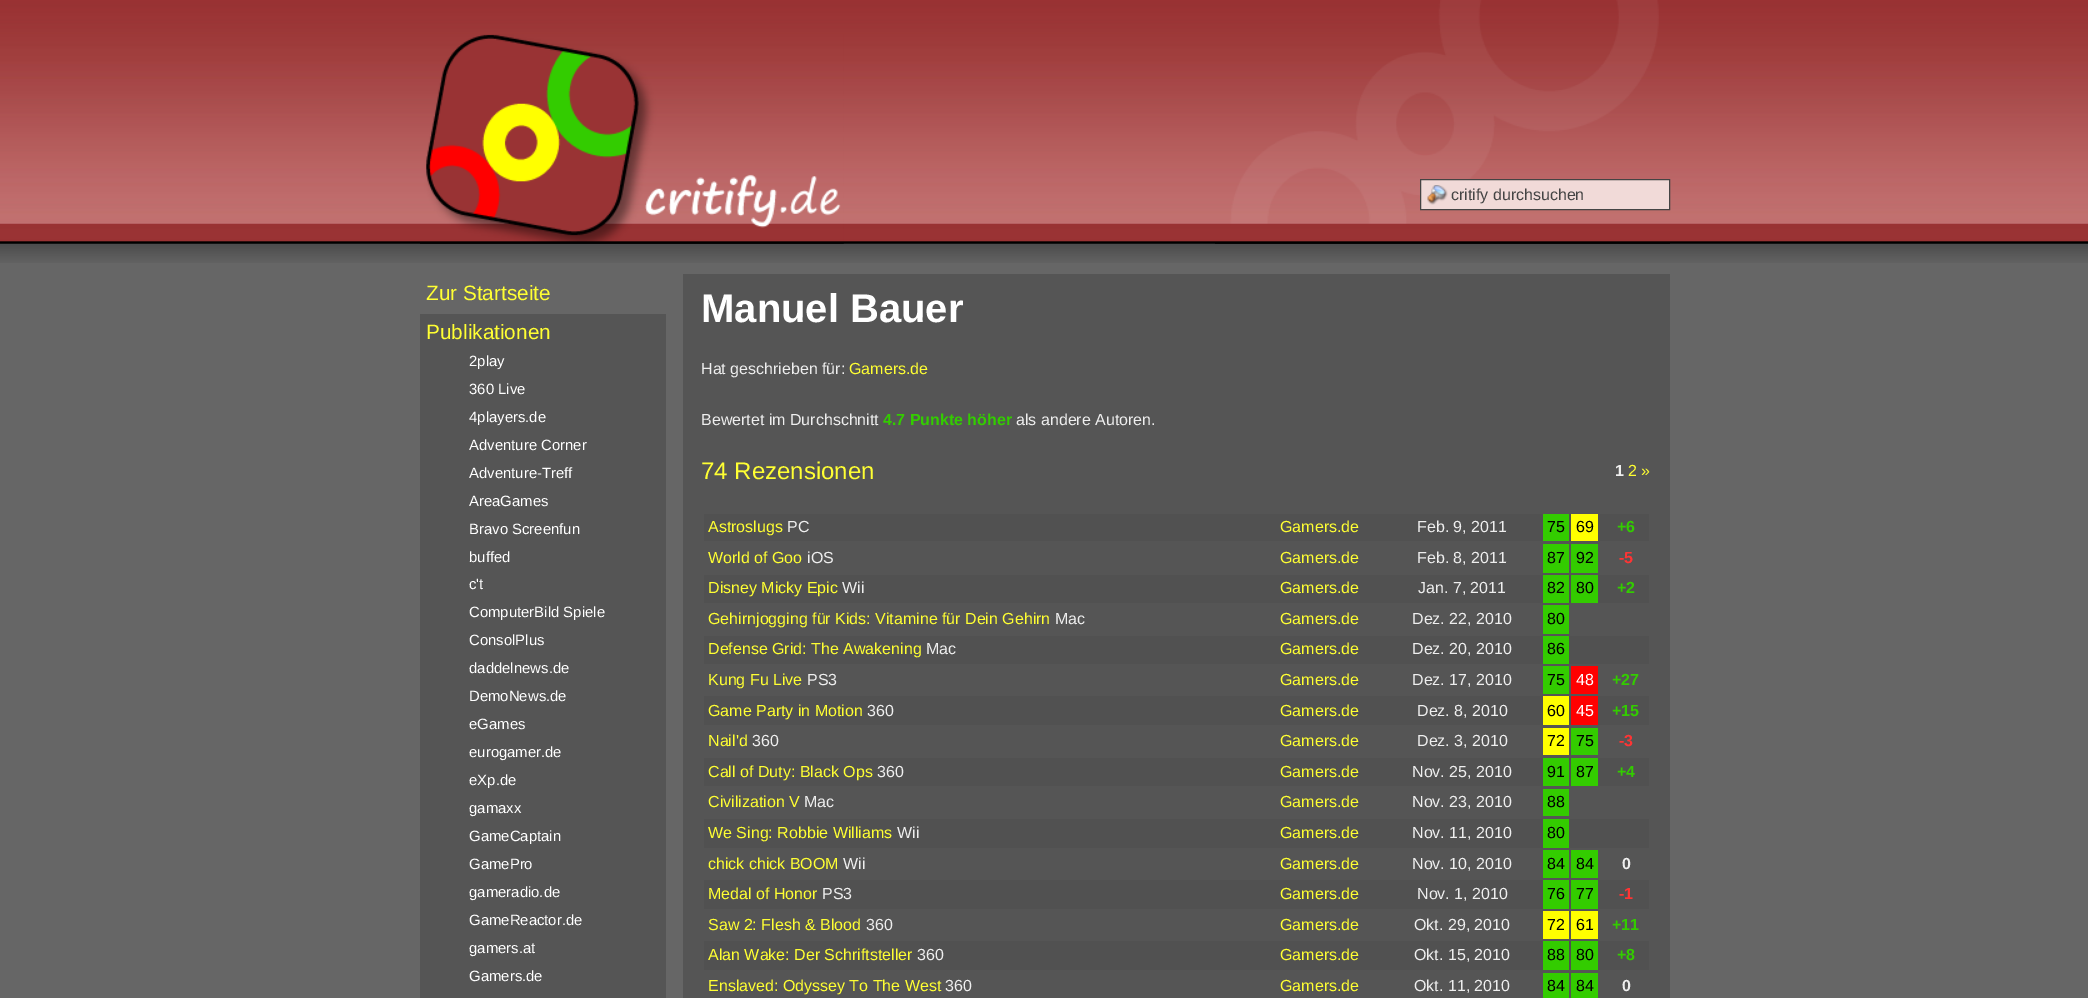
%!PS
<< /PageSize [2088 998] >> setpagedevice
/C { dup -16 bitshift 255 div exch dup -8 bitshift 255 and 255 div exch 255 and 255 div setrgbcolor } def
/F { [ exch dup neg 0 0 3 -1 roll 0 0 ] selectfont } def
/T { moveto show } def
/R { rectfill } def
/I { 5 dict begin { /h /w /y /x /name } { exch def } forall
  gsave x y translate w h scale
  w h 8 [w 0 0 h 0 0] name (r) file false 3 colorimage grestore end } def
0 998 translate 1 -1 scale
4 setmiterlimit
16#666666 C
0 0 2088 998 R
(1.rgb) 0 0 2088 263 I
(2.rgb) 420 34 424 210 I
(3.rgb) 1215 0 455 244 I
16#F1DAD8 C
1421 180 248 29 R
(4.rgb) 1427 185 21 20 I
16#444444 C
1420.5 179.5 249 30 rectstroke
/LiberationSans-Regular 16 F
(critify durchsuchen) 1451 200 T
/LiberationSans-Regular 20.75 F
16#FFFF33 C
(Zur Startseite) 426 300 T
16#555555 C
420 314 246 684 R
16#FFFF33 C
(Publikationen) 426 339 T
/LiberationSans-Regular 14.9 F
16#FFFFFF C
(2play) 469 366 T
(360 Live) 469 394 T
(4players.de) 469 422 T
(Adventure Corner) 469 450 T
(Adventure-Treff) 469 478 T
(AreaGames) 469 506 T
(Bravo Screenfun) 469 534 T
(buffed) 469 562 T
(c't) 469 589 T
(ComputerBild Spiele) 469 617 T
(ConsolPlus) 469 645 T
(daddelnews.de) 469 673 T
(DemoNews.de) 469 701 T
(eGames) 469 729 T
(eurogamer.de) 469 757 T
(eXp.de) 469 785 T
(gamaxx) 469 813 T
(GameCaptain) 469 841 T
(GamePro) 469 869 T
(gameradio.de) 469 897 T
(GameReactor.de) 469 925 T
(gamers.at) 469 953 T
(Gamers.de) 469 981 T
16#555555 C
683 274 987 724 R
/LiberationSans-Bold 40 F
16#FFFFFF C
(Manuel Bauer) 701 322 T
/LiberationSans-Regular 16 F
16#EEEEEE C
(Hat geschrieben für:) 701 374 T
16#FFFF33 C
(Gamers.de) 849 374 T
16#EEEEEE C
(Bewertet im Durchschnitt) 701 425 T
/LiberationSans-Bold 16 F
16#33CC00 C
(4.7 Punkte höher) 883 425 T
/LiberationSans-Regular 16 F
16#EEEEEE C
(als andere Autoren.) 1016 425 T
/LiberationSans-Regular 24 F
16#FFFF33 C
(74 Rezensionen) 701 479 T
/LiberationSans-Bold 16 F
16#EEEEEE C
(1) 1615 476 T
/LiberationSans-Regular 16 F
16#FFFF33 C
(2 ») 1628 476 T
16#515151 C
704 514 945 27 R
16#FFFF33 C
(Astroslugs) 708 532 T
16#EEEEEE C
(PC) 787 532 T
16#FFFF33 C
(Gamers.de) 1280 532 T
16#EEEEEE C
(Feb. 9, 2011) 1417 532 T
16#33CC00 C
1543 514 26 27 R
16#000000 C
(75) 1547 532 T
16#FFFF00 C
1571 514 27 27 R
16#000000 C
(69) 1576 532 T
/LiberationSans-Bold 16 F
16#33CC00 C
(+6) 1617 532 T
/LiberationSans-Regular 16 F
16#FFFF33 C
(World of Goo) 708 563 T
16#EEEEEE C
(iOS) 807 563 T
16#FFFF33 C
(Gamers.de) 1280 563 T
16#EEEEEE C
(Feb. 8, 2011) 1417 563 T
16#33CC00 C
1543 544 26 29 R
16#000000 C
(87) 1547 563 T
16#33CC00 C
1571 544 27 29 R
16#000000 C
(92) 1576 563 T
/LiberationSans-Bold 16 F
16#FF3434 C
(-5) 1619 563 T
16#515151 C
704 575 945 28 R
/LiberationSans-Regular 16 F
16#FFFF33 C
(Disney Micky Epic) 708 593 T
16#EEEEEE C
(Wii) 842 593 T
16#FFFF33 C
(Gamers.de) 1280 593 T
16#EEEEEE C
(Jan. 7, 2011) 1418 593 T
16#33CC00 C
1543 575 26 28 R
16#000000 C
(82) 1547 593 T
16#33CC00 C
1571 575 27 28 R
16#000000 C
(80) 1576 593 T
/LiberationSans-Bold 16 F
16#33CC00 C
(+2) 1617 593 T
/LiberationSans-Regular 16 F
16#FFFF33 C
(Gehirnjogging für Kids: Vitamine für Dein Gehirn) 708 624 T
16#EEEEEE C
(Mac) 1055 624 T
16#FFFF33 C
(Gamers.de) 1280 624 T
16#EEEEEE C
(Dez. 22, 2010) 1412 624 T
16#33CC00 C
1543 605 26 29 R
16#000000 C
(80) 1547 624 T
16#515151 C
704 636 945 28 R
16#FFFF33 C
(Defense Grid: The Awakening) 708 654 T
16#EEEEEE C
(Mac) 926 654 T
16#FFFF33 C
(Gamers.de) 1280 654 T
16#EEEEEE C
(Dez. 20, 2010) 1412 654 T
16#33CC00 C
1543 636 26 28 R
16#000000 C
(86) 1547 654 T
16#FFFF33 C
(Kung Fu Live) 708 685 T
16#EEEEEE C
(PS3) 807 685 T
16#FFFF33 C
(Gamers.de) 1280 685 T
16#EEEEEE C
(Dez. 17, 2010) 1412 685 T
16#33CC00 C
1543 666 26 28 R
16#000000 C
(75) 1547 685 T
16#FF0000 C
1571 666 27 28 R
16#FFFFFF C
(48) 1576 685 T
/LiberationSans-Bold 16 F
16#33CC00 C
(+27) 1612 685 T
16#515151 C
704 696 945 29 R
/LiberationSans-Regular 16 F
16#FFFF33 C
(Game Party in Motion) 708 716 T
16#EEEEEE C
(360) 867 716 T
16#FFFF33 C
(Gamers.de) 1280 716 T
16#EEEEEE C
(Dez. 8, 2010) 1417 716 T
16#FFFF00 C
1543 696 26 29 R
16#000000 C
(60) 1547 716 T
16#FF0000 C
1571 696 27 29 R
16#FFFFFF C
(45) 1576 716 T
/LiberationSans-Bold 16 F
16#33CC00 C
(+15) 1612 716 T
/LiberationSans-Regular 16 F
16#FFFF33 C
(Nail'd) 708 746 T
16#EEEEEE C
(360) 752 746 T
16#FFFF33 C
(Gamers.de) 1280 746 T
16#EEEEEE C
(Dez. 3, 2010) 1417 746 T
16#FFFF00 C
1543 728 26 27 R
16#000000 C
(72) 1547 746 T
16#33CC00 C
1571 728 27 27 R
16#000000 C
(75) 1576 746 T
/LiberationSans-Bold 16 F
16#FF3434 C
(-3) 1619 746 T
16#515151 C
704 758 945 28 R
/LiberationSans-Regular 16 F
16#FFFF33 C
(Call of Duty: Black Ops) 708 777 T
16#EEEEEE C
(360) 877 777 T
16#FFFF33 C
(Gamers.de) 1280 777 T
16#EEEEEE C
(Nov. 25, 2010) 1412 777 T
16#33CC00 C
1543 758 26 28 R
16#000000 C
(91) 1547 777 T
16#33CC00 C
1571 758 27 28 R
16#000000 C
(87) 1576 777 T
/LiberationSans-Bold 16 F
16#33CC00 C
(+4) 1617 777 T
/LiberationSans-Regular 16 F
16#FFFF33 C
(Civilization V) 708 807 T
16#EEEEEE C
(Mac) 804 807 T
16#FFFF33 C
(Gamers.de) 1280 807 T
16#EEEEEE C
(Nov. 23, 2010) 1412 807 T
16#33CC00 C
1543 789 26 27 R
16#000000 C
(88) 1547 807 T
16#515151 C
704 819 945 29 R
16#FFFF33 C
(We Sing: Robbie Williams) 708 838 T
16#EEEEEE C
(Wii) 897 838 T
16#FFFF33 C
(Gamers.de) 1280 838 T
16#EEEEEE C
(Nov. 11, 2010) 1412 838 T
16#33CC00 C
1543 819 26 29 R
16#000000 C
(80) 1547 838 T
16#FFFF33 C
(chick chick BOOM) 708 869 T
16#EEEEEE C
(Wii) 843 869 T
16#FFFF33 C
(Gamers.de) 1280 869 T
16#EEEEEE C
(Nov. 10, 2010) 1412 869 T
16#33CC00 C
1543 850 26 28 R
16#000000 C
(84) 1547 869 T
16#33CC00 C
1571 850 27 28 R
16#000000 C
(84) 1576 869 T
/LiberationSans-Bold 16 F
16#EEEEEE C
(0) 1622 869 T
16#515151 C
704 880 945 29 R
/LiberationSans-Regular 16 F
16#FFFF33 C
(Medal of Honor) 708 899 T
16#EEEEEE C
(PS3) 822 899 T
16#FFFF33 C
(Gamers.de) 1280 899 T
16#EEEEEE C
(Nov. 1, 2010) 1417 899 T
16#33CC00 C
1543 880 26 29 R
16#000000 C
(76) 1547 899 T
16#33CC00 C
1571 880 27 29 R
16#000000 C
(77) 1576 899 T
/LiberationSans-Bold 16 F
16#FF3434 C
(-1) 1619 899 T
/LiberationSans-Regular 16 F
16#FFFF33 C
(Saw 2: Flesh & Blood) 708 930 T
16#EEEEEE C
(360) 866 930 T
16#FFFF33 C
(Gamers.de) 1280 930 T
16#EEEEEE C
(Okt. 29, 2010) 1414 930 T
16#FFFF00 C
1543 911 26 28 R
16#000000 C
(72) 1547 930 T
16#FFFF00 C
1571 911 27 28 R
16#000000 C
(61) 1576 930 T
/LiberationSans-Bold 16 F
16#33CC00 C
(+11) 1612 930 T
16#515151 C
704 941 945 29 R
/LiberationSans-Regular 16 F
16#FFFF33 C
(Alan Wake: Der Schriftsteller) 708 960 T
16#EEEEEE C
(360) 917 960 T
16#FFFF33 C
(Gamers.de) 1280 960 T
16#EEEEEE C
(Okt. 15, 2010) 1414 960 T
16#33CC00 C
1543 941 26 29 R
16#000000 C
(88) 1547 960 T
16#33CC00 C
1571 941 27 29 R
16#000000 C
(80) 1576 960 T
/LiberationSans-Bold 16 F
16#33CC00 C
(+8) 1617 960 T
/LiberationSans-Regular 16 F
16#FFFF33 C
(Enslaved: Odyssey To The West) 708 991 T
16#EEEEEE C
(360) 945 991 T
16#FFFF33 C
(Gamers.de) 1280 991 T
16#EEEEEE C
(Okt. 11, 2010) 1414 991 T
16#33CC00 C
1543 973 26 25 R
16#000000 C
(84) 1547 991 T
16#33CC00 C
1571 973 27 25 R
16#000000 C
(84) 1576 991 T
/LiberationSans-Bold 16 F
16#EEEEEE C
(0) 1622 991 T
showpage
